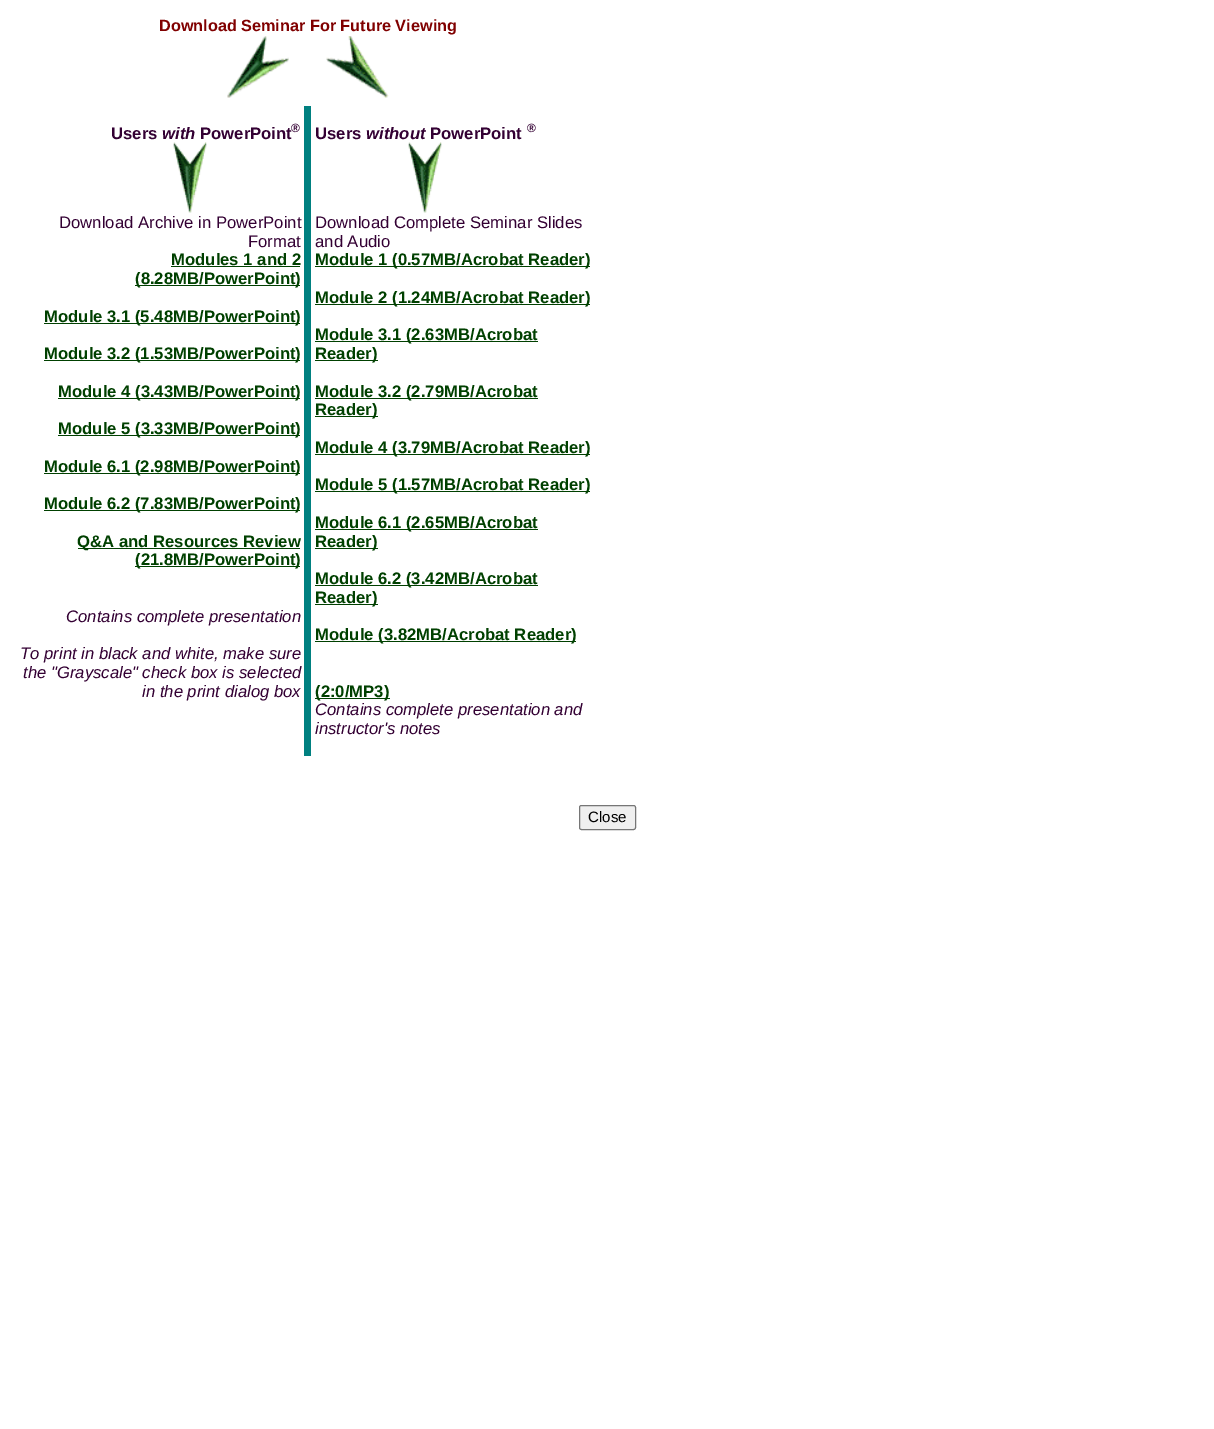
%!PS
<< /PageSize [1214 1429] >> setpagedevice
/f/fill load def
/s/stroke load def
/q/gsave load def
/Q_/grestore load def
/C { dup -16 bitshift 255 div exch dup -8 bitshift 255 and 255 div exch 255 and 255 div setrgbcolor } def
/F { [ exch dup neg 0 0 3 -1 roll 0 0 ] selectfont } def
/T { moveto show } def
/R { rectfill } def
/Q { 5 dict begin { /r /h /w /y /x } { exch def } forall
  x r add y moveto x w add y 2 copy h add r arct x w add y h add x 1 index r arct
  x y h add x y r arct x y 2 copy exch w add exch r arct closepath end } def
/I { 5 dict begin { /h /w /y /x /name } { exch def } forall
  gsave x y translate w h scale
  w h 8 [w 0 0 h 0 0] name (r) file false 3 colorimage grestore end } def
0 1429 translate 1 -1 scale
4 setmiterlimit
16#FFFFFF C
0 0 1214 1429 R
/LiberationSans-Bold 16.25 F
16#800000 C
(Download Seminar For Future Viewing) 159 31 T
(1.rgb) 227 36 62 62 I
(2.rgb) 326 36 63 62 I
/LiberationSans-Bold 16.7 F
16#330033 C
(Users) 111 139 T
/LiberationSans-BoldItalic 16.7 F
(with) 162 139 T
/LiberationSans-Bold 16.7 F
(PowerPoint) 200 139 T
/LiberationSans-Bold 12 F
(®) 291 132 T
(3.rgb) 173 142 34 71 I
/LiberationSans-Regular 16.7 F
(Download Archive in PowerPoint) 59 228 T
(Format) 248 247 T
/LiberationSans-Bold 16.7 F
16#004000 C
(Modules 1 and 2) 171 265 T
171 266 129 1 R
135 285 165 1 R
(\(8.28MB/PowerPoint\)) 135 284 T
44 323 256 1 R
(Module 3.1 \(5.48MB/PowerPoint\)) 44 322 T
44 360 256 1 R
(Module 3.2 \(1.53MB/PowerPoint\)) 44 359 T
58 398 242 1 R
(Module 4 \(3.43MB/PowerPoint\)) 58 397 T
58 435 242 1 R
(Module 5 \(3.33MB/PowerPoint\)) 58 434 T
44 473 256 1 R
(Module 6.1 \(2.98MB/PowerPoint\)) 44 472 T
44 510 256 1 R
(Module 6.2 \(7.83MB/PowerPoint\)) 44 509 T
78 548 222 1 R
(Q&A and Resources Review) 77 547 T
135 566 165 1 R
(\(21.8MB/PowerPoint\)) 135 565 T
/LiberationSans-Italic 16.7 F
16#330033 C
(Contains complete presentation) 66 622 T
(To print in black and white, make sure) 20 659 T
(the "Grayscale" check box is selected) 23 678 T
(in the print dialog box) 142 697 T
16#008080 C
304 106 7 650 R
/LiberationSans-Bold 16.7 F
16#330033 C
(Users) 315 139 T
/LiberationSans-BoldItalic 16.7 F
(without) 366 139 T
/LiberationSans-Bold 16.7 F
(PowerPoint) 430 139 T
/LiberationSans-Bold 12 F
(®) 527 132 T
(4.rgb) 408 142 34 71 I
/LiberationSans-Regular 16.7 F
(Download Complete Seminar Slides) 315 228 T
(and Audio) 315 247 T
16#004000 C
315 266 275 1 R
/LiberationSans-Bold 16.7 F
(Module 1 \(0.57MB/Acrobat Reader\)) 315 265 T
315 304 275 1 R
(Module 2 \(1.24MB/Acrobat Reader\)) 315 303 T
315 341 223 1 R
(Module 3.1 \(2.63MB/Acrobat) 315 340 T
315 360 63 1 R
(Reader\)) 315 359 T
315 398 223 1 R
(Module 3.2 \(2.79MB/Acrobat) 315 397 T
315 416 63 1 R
(Reader\)) 315 415 T
315 454 275 1 R
(Module 4 \(3.79MB/Acrobat Reader\)) 315 453 T
315 491 275 1 R
(Module 5 \(1.57MB/Acrobat Reader\)) 315 490 T
315 529 223 1 R
(Module 6.1 \(2.65MB/Acrobat) 315 528 T
315 548 63 1 R
(Reader\)) 315 547 T
315 585 223 1 R
(Module 6.2 \(3.42MB/Acrobat) 315 584 T
315 604 63 1 R
(Reader\)) 315 603 T
315 641 261 1 R
(Module \(3.82MB/Acrobat Reader\)) 315 640 T
315 698 75 1 R
(\(2:0/MP3\)) 315 697 T
/LiberationSans-Italic 16.7 F
16#330033 C
(Contains complete presentation and) 315 715 T
(instructor's notes) 315 734 T
16#EFEFEF C
579.5 805.5 56 24 2 Q q f Q_
16#767676 C
s
/LiberationSans-Regular 15 F
16#000000 C
(Close) 588 822 T
showpage
